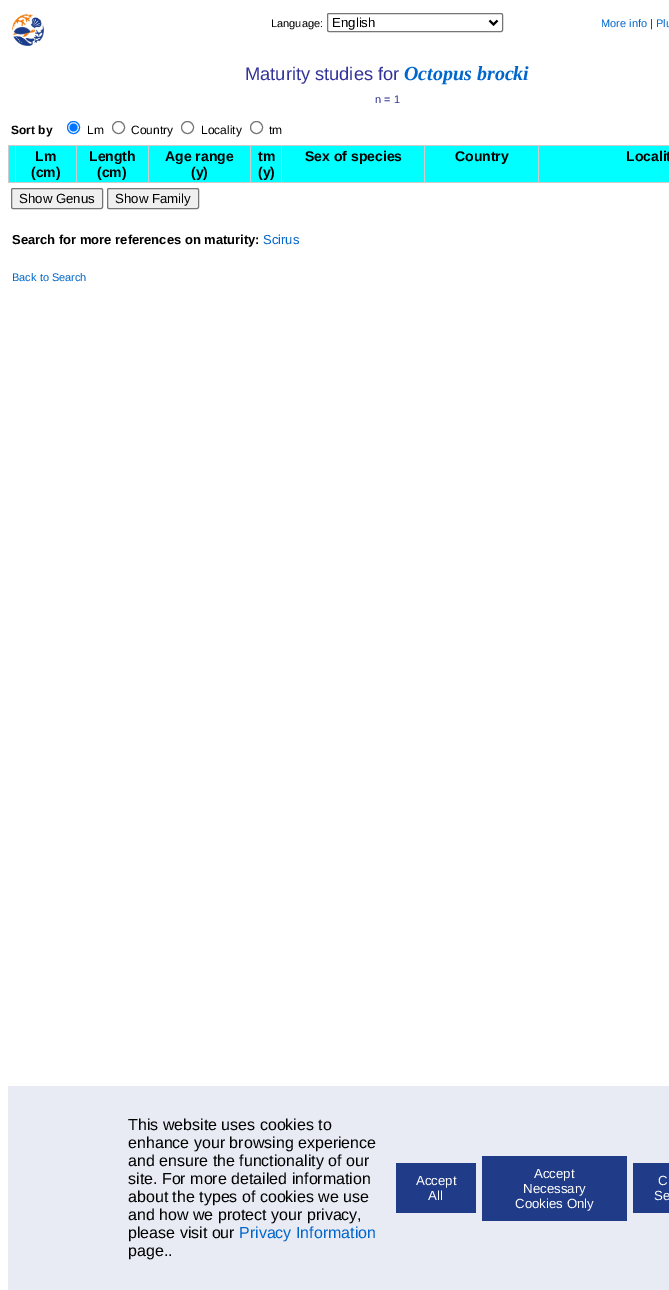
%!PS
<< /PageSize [669 1290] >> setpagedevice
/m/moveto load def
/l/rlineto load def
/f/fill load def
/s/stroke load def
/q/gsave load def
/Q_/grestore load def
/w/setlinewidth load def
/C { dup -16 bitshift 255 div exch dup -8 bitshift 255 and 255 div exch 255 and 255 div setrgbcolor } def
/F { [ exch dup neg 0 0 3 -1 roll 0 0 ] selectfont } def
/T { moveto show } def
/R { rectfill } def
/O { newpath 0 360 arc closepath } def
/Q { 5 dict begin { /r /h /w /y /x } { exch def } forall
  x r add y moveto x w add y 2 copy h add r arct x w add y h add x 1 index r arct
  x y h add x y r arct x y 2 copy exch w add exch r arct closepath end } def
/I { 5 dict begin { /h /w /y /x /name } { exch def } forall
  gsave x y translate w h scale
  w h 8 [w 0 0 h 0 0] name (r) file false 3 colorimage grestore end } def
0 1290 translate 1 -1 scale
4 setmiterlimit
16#FFFFFF C
0 0 669 1290 R
(1.rgb) 12 14 32 32 I
/LiberationSans-Regular 11 F
16#000000 C
(Language:) 271 27 T
16#767676 C
327.5 13.5 175 18 1.5 Q s
16#000000 C
2 w
489.5 20.5 m 4 4 l 4 -4 l s
/LiberationSans-Regular 13.25 F
(English) 332 27 T
/LiberationSans-Regular 11 F
16#0066CC C
(More info) 601 27 T
16#000000 C
(|) 650 27 T
16#0066CC C
(Plu) 656 27 T
/LiberationSans-Regular 18.25 F
16#333399 C
(Maturity studies for) 245 80 T
/LiberationSerif-BoldItalic 20 F
16#0066CC C
(Octopus brocki) 404 80 T
/LiberationSans-Regular 11 F
16#333399 C
(n = 1) 375 103 T
/LiberationSans-Bold 12 F
16#000000 C
(Sort by) 11 134 T
16#0075FF C
1 w
73.5 127.5 6 O s
73.5 127.5 4 O f
/LiberationSans-Regular 12 F
16#000000 C
(Lm) 87 134 T
16#767676 C
118.5 127.5 6 O s
16#000000 C
(Country) 131 134 T
16#767676 C
187.5 127.5 6 O s
16#000000 C
(Locality) 201 134 T
16#767676 C
256.5 127.5 6 O s
16#000000 C
(tm) 269 134 T
16#CCCCCC C
8 145 661 1 R
16#00FFFF C
9 146 6 37 R
16#CCCCCC C
8 182 661 1 R
8 145 1 38 R
16#00FFFF C
16 146 60 36 R
16#CCCCCC C
15 145 1 38 R
/LiberationSans-Bold 14 F
16#000000 C
(Lm) 35 161 T
(\(cm\)) 31 177 T
16#00FFFF C
77 146 71 36 R
16#CCCCCC C
76 145 1 38 R
16#000000 C
(Length) 89 161 T
(\(cm\)) 97 177 T
16#00FFFF C
149 146 101 36 R
16#CCCCCC C
148 145 1 38 R
16#000000 C
(Age range) 165 161 T
(\(y\)) 191 177 T
16#00FFFF C
251 146 30 36 R
16#CCCCCC C
250 145 1 38 R
16#000000 C
(tm) 258 161 T
(\(y\)) 258 177 T
16#00FFFF C
282 146 142 36 R
16#CCCCCC C
281 145 1 38 R
16#000000 C
(Sex of species) 305 161 T
16#00FFFF C
425 146 113 36 R
16#CCCCCC C
424 145 1 38 R
16#000000 C
(Country) 455 161 T
16#00FFFF C
539 146 130 36 R
16#CCCCCC C
538 145 1 38 R
16#000000 C
(Localit) 626 161 T
16#EFEFEF C
11.5 188.5 91 20 1.5 Q q f Q_
16#767676 C
s
/LiberationSans-Regular 13.25 F
16#000000 C
(Show Genus) 19 203 T
16#EFEFEF C
107.5 188.5 91 20 1.5 Q q f Q_
16#767676 C
s
16#000000 C
(Show Family) 115 203 T
/LiberationSans-Bold 13 F
(Search for more references on maturity:) 12 244 T
/LiberationSans-Regular 13 F
16#0066CC C
(Scirus) 263 244 T
/LiberationSans-Regular 11 F
(Back to Search) 12 281 T
16#E8EBF3 C
8 1086 661 204 R
/LiberationSans-Regular 16 F
16#000000 C
(This website uses cookies to) 128 1130 T
(enhance your browsing experience) 128 1148 T
(and ensure the functionality of our) 128 1166 T
(site. For more detailed information) 128 1184 T
(about the types of cookies we use) 128 1202 T
(and how we protect your privacy,) 128 1220 T
(please visit our) 128 1238 T
16#0066CC C
(Privacy Information) 239 1238 T
16#000000 C
(page..) 128 1256 T
16#203C88 C
396 1163 80 50 R
/LiberationSans-Regular 13.25 F
16#FFFFFF C
(Accept) 416 1185 T
(All) 428 1200 T
16#203C88 C
482 1156 145 65 R
16#FFFFFF C
(Accept) 534 1178 T
(Necessary) 523 1193 T
(Cookies Only) 515 1208 T
16#203C88 C
633 1163 36 50 R
16#FFFFFF C
(C) 658 1185 T
(Se) 654 1200 T
showpage
